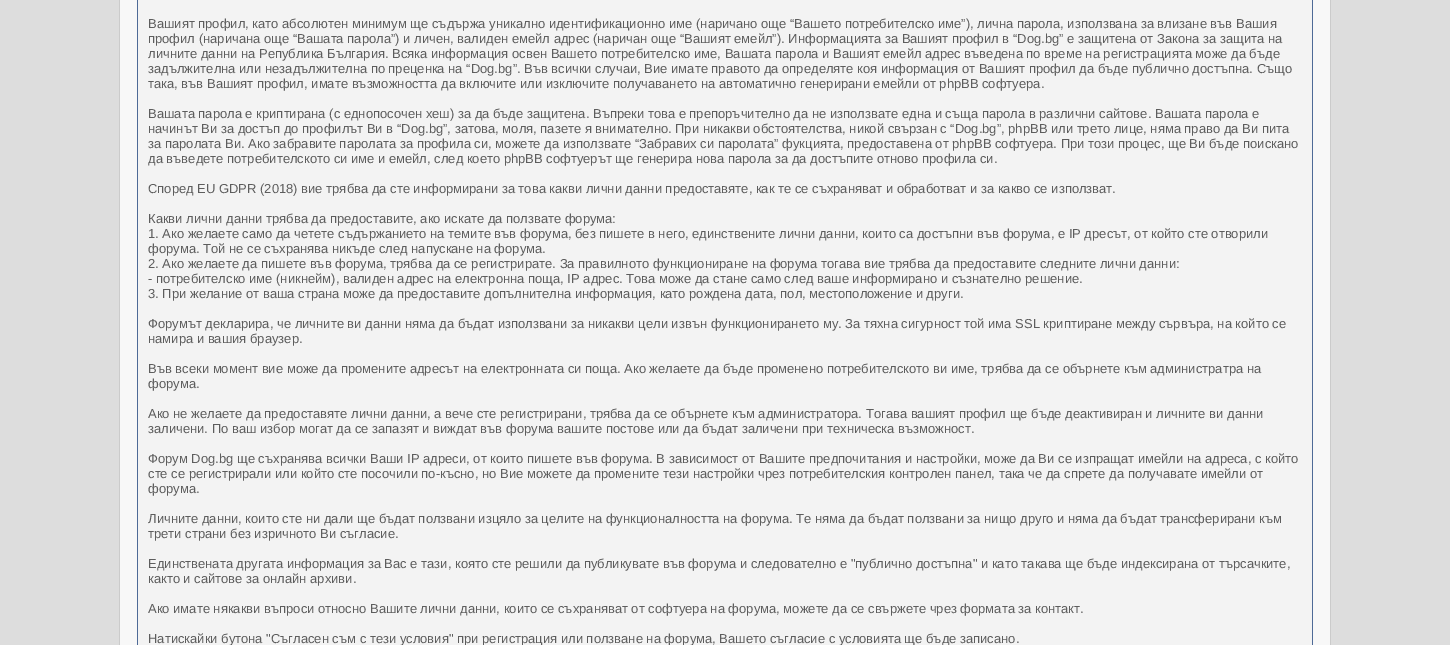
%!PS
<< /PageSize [1450 645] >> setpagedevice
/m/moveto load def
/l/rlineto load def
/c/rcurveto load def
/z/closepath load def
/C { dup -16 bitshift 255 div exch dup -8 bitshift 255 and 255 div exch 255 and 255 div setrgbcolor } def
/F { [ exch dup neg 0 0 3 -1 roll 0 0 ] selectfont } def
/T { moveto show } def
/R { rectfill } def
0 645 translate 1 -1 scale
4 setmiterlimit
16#DDDDDD C
0 0 1450 645 R
16#F8F8F8 C
120 0 1210 645 R
16#CBCBCB C
119 -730 m 1212 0 l 0 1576 l 0 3 -2 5 -5 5 c -1202 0 l -3 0 -5 -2 -5 -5 c z 120 -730 m 1210 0 l 0 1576 l 0 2 -2 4 -4 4 c -1202 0 l -2 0 -4 -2 -4 -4 c z eofill
16#F3F3F3 C
138 0 1174 645 R
16#4E6A97 C
1312 0 1 645 R
137 0 1 645 R
/LiberationSans-Regular 13 F
16#5D5D5D C
(Вашият профил, като абсолютен минимум ще съдържа уникално идентификационно име \(наричано още “Вашето потребителско име”\), лична парола, използвана за влизане във Вашия) 148 28 T
(профил \(наричана още “Вашата парола”\) и личен, валиден емейл адрес \(наричан още “Вашият емейл”\). Информацията за Вашият профил в “Dog.bg” е защитена от Закона за защита на) 148 43 T
(личните данни на Република България. Всяка информация освен Вашето потребителско име, Вашата парола и Вашият емейл адрес въведена по време на регистрацията може да бъде) 148 58 T
(задължителна или незадължителна по преценка на “Dog.bg”. Във всички случаи, Вие имате правото да определяте коя информация от Вашият профил да бъде публично достъпна. Също) 148 73 T
(така, във Вашият профил, имате възможността да включите или изключите получаването на автоматично генерирани емейли от phpBB софтуера.) 148 88 T
(Вашата парола е криптирана \(с еднопосочен хеш\) за да бъде защитена. Въпреки това е препоръчително да не използвате една и съща парола в различни сайтове. Вашата парола е) 148 118 T
(начинът Ви за достъп до профилът Ви в “Dog.bg”, затова, моля, пазете я внимателно. При никакви обстоятелства, никой свързан с “Dog.bg”, phpBB или трето лице, няма право да Ви пита) 148 133 T
(за паролата Ви. Ако забравите паролата за профила си, можете да използвате “Забравих си паролата” фукцията, предоставена от phpBB софтуера. При този процес, ще Ви бъде поискано) 148 148 T
(да въведете потребителското си име и емейл, след което phpBB софтуерът ще генерира нова парола за да достъпите отново профила си.) 148 163 T
(Според EU GDPR \(2018\) вие трябва да сте информирани за това какви лични данни предоставяте, как те се съхраняват и обработват и за какво се използват.) 148 193 T
(Какви лични данни трябва да предоставите, ако искате да ползвате форума:) 148 223 T
(1. Ако желаете само да четете съдържанието на темите във форума, без пишете в него, единствените лични данни, които са достъпни във форума, е IP дресът, от който сте отворили) 148 238 T
(форума. Той не се съхранява никъде след напускане на форума.) 148 253 T
(2. Ако желаете да пишете във форума, трябва да се регистрирате. За правилното функциониране на форума тогава вие трябва да предоставите следните лични данни:) 148 268 T
(- потребителско име \(никнейм\), валиден адрес на електронна поща, IP адрес. Това може да стане само след ваше информирано и съзнателно решение.) 148 283 T
(3. При желание от ваша страна може да предоставите допълнителна информация, като рождена дата, пол, местоположение и други.) 148 298 T
(Форумът декларира, че личните ви данни няма да бъдат използвани за никакви цели извън функционирането му. За тяхна сигурност той има SSL криптиране между сървъра, на който се) 148 328 T
(намира и вашия браузер.) 148 343 T
(Във всеки момент вие може да промените адресът на електронната си поща. Ако желаете да бъде променено потребителското ви име, трябва да се обърнете към администратра на) 148 373 T
(форума.) 148 388 T
(Ако не желаете да предоставяте лични данни, а вече сте регистрирани, трябва да се обърнете към администратора. Тогава вашият профил ще бъде деактивиран и личните ви данни) 148 418 T
(заличени. По ваш избор могат да се запазят и виждат във форума вашите постове или да бъдат заличени при техническа възможност.) 148 433 T
(Форум Dog.bg ще съхранява всички Ваши IP адреси, от които пишете във форума. В зависимост от Вашите предпочитания и настройки, може да Ви се изпращат имейли на адреса, с който) 148 463 T
(сте се регистрирали или който сте посочили по-късно, но Вие можете да промените тези настройки чрез потребителския контролен панел, така че да спрете да получавате имейли от) 148 478 T
(форума.) 148 493 T
(Личните данни, които сте ни дали ще бъдат ползвани изцяло за целите на функционалността на форума. Те няма да бъдат ползвани за нищо друго и няма да бъдат трансферирани към) 148 523 T
(трети страни без изричното Ви съгласие.) 148 538 T
(Единствената другата информация за Вас е тази, която сте решили да публикувате във форума и следователно е "публично достъпна" и като такава ще бъде индексирана от търсачките,) 148 568 T
(както и сайтове за онлайн архиви.) 148 583 T
(Ако имате някакви въпроси относно Вашите лични данни, които се съхраняват от софтуера на форума, можете да се свържете чрез формата за контакт.) 148 613 T
(Натискайки бутона "Съгласен съм с тези условия" при регистрация или ползване на форума, Вашето съгласие с условията ще бъде записано.) 148 643 T
showpage
